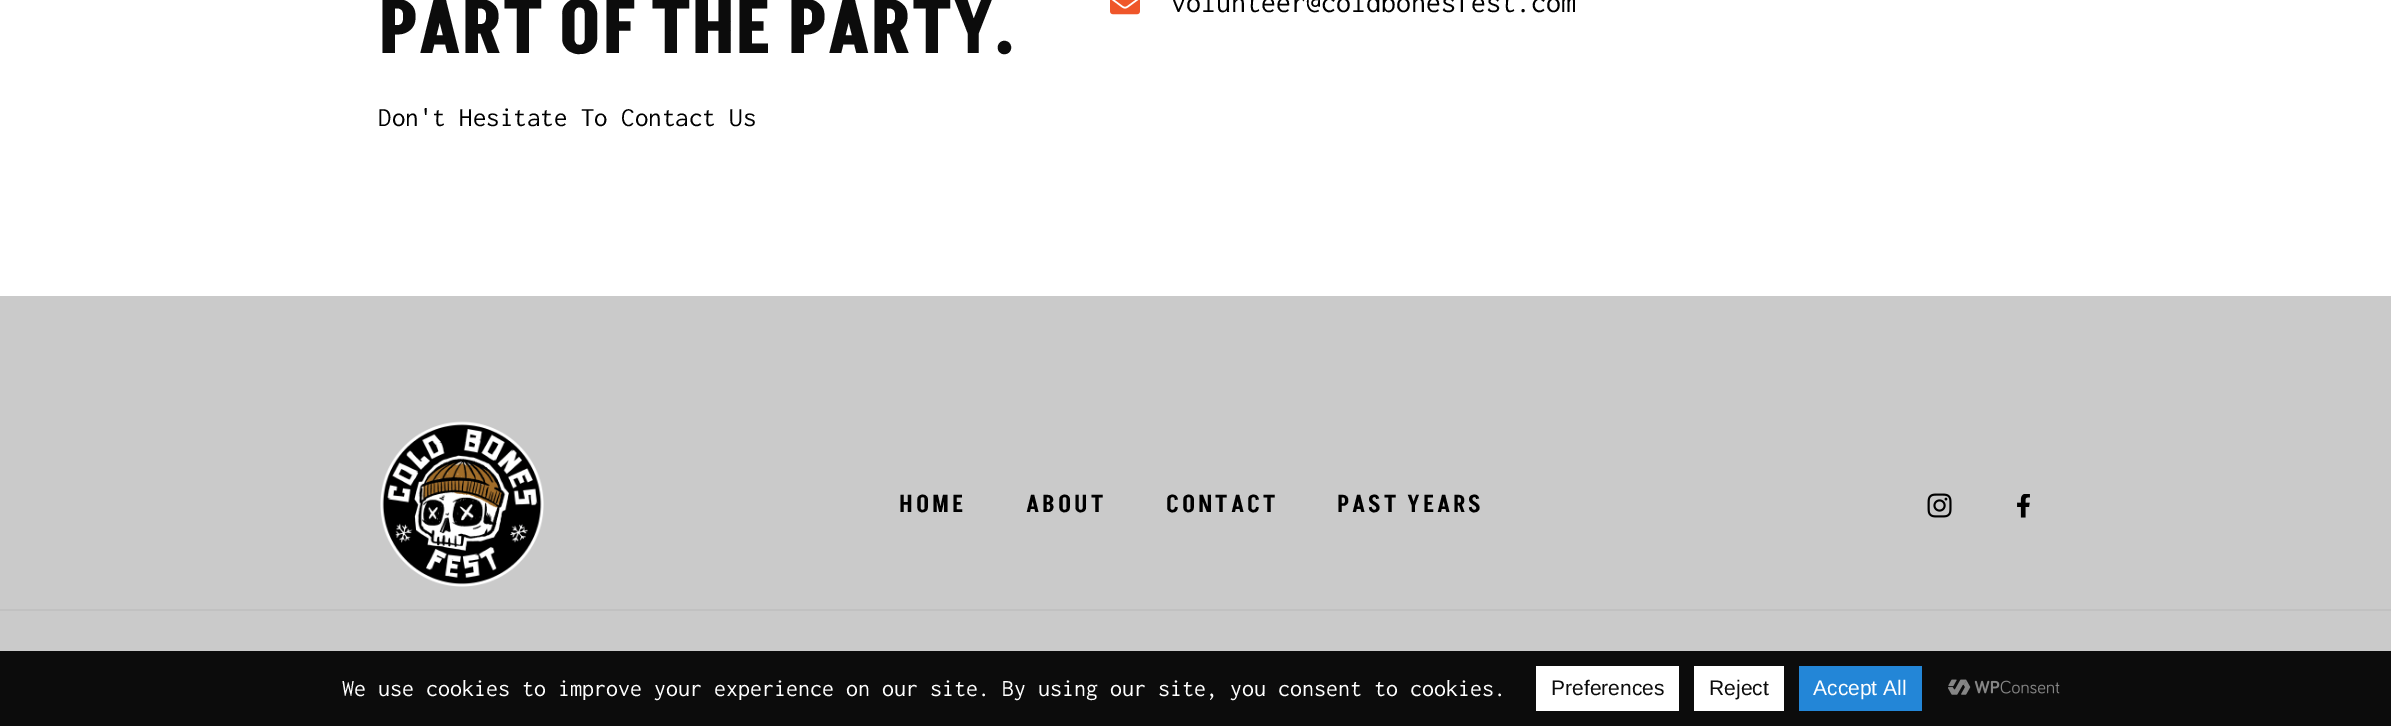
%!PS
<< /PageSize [2391 726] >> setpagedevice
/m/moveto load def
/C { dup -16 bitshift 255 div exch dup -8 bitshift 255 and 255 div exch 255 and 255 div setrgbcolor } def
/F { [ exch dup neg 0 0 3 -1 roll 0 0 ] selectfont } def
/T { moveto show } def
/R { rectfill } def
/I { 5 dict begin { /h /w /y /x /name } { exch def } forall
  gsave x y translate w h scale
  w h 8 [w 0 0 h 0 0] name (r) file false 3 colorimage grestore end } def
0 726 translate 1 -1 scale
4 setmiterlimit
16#FFFFFF C
0 0 2391 726 R
/Akshar-Bold 75 F
16#0C0C0C C
(PART OF THE PARTY.) 378 53 T
/Inconsolata-Regular 27 F
16#000000 C
(Don't Hesitate To Contact Us) 378 126 T
(1.rgb) 1110 0 30 15 I
/Inconsolata-Regular 30 F
(volunteer@coldbonesfest.com) 1171 12 T
16#CACACA C
0 296 2391 355 R
16#C1C1C1 C
0 609 2391 2 R
(2.rgb) 380 421 164 166 I
/Akshar-SemiBold 24 F
16#000000 C
899 512 m 3 0 (HOME) ashow
1026 512 m 3 0 (ABOUT) ashow
1166 512 m 3 0 (CONTACT) ashow
1337 512 m 3 0 (PAST YEARS) ashow
(3.rgb) 1927 493 25 25 I
(4.rgb) 2017 494 13 24 I
16#0C0C0C C
0 651 2391 75 R
/Inconsolata-Regular 24 F
16#FFFFFF C
(We use cookies to improve your experience on our site. By using our site, you consent to cookies.) 342 696 T
1536 666 143 45 R
/LiberationSans-Regular 21 F
16#0C0C0C C
(Preferences) 1551 695 T
16#FFFFFF C
1694 666 90 45 R
16#0C0C0C C
(Reject) 1709 695 T
16#2386D7 C
1799 666 123 45 R
16#FFFFFF C
(Accept All) 1813 695 T
(5.rgb) 1948 679 112 16 I
showpage
